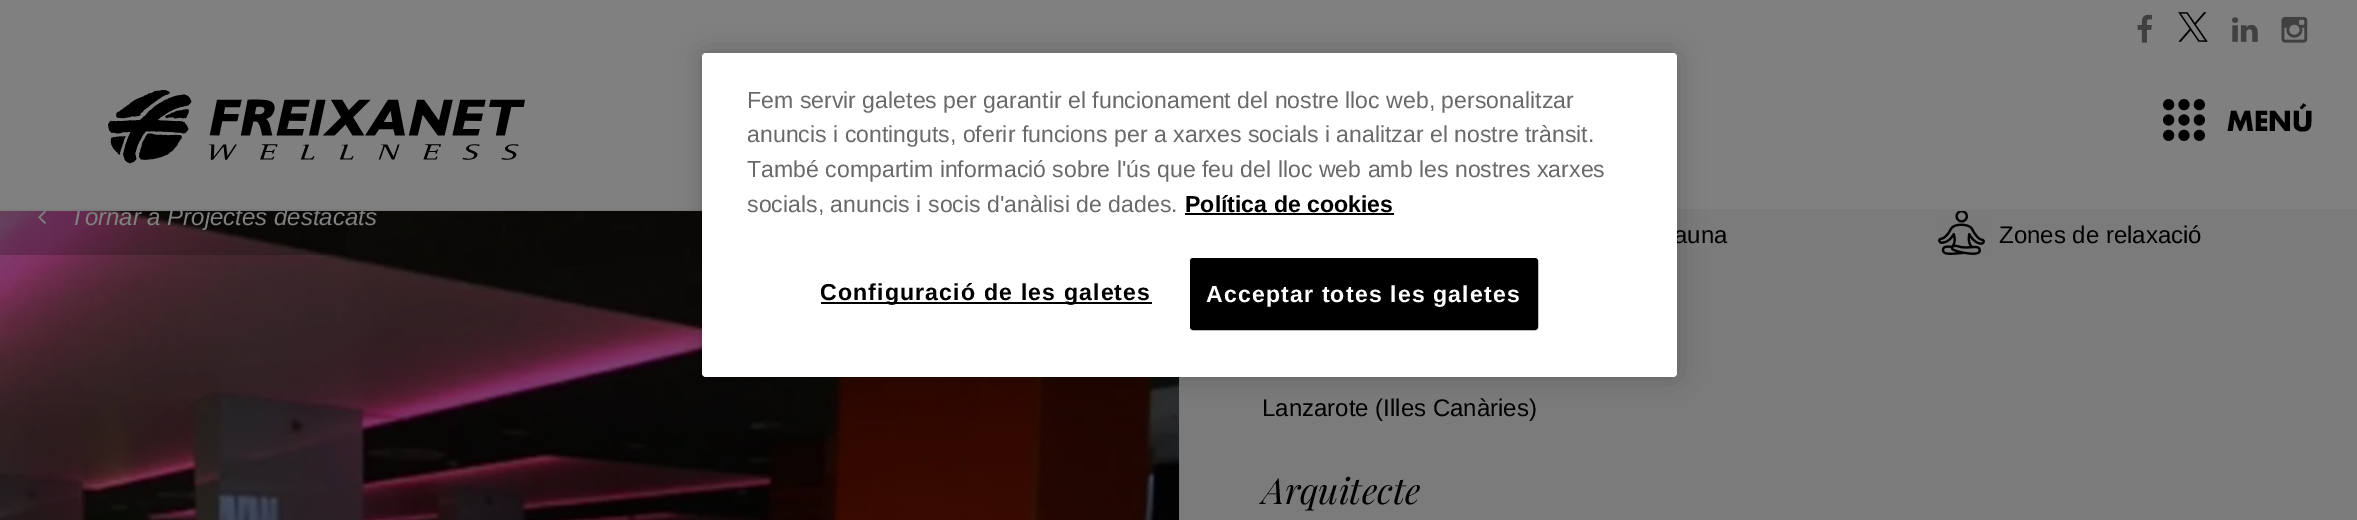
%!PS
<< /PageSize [2357 520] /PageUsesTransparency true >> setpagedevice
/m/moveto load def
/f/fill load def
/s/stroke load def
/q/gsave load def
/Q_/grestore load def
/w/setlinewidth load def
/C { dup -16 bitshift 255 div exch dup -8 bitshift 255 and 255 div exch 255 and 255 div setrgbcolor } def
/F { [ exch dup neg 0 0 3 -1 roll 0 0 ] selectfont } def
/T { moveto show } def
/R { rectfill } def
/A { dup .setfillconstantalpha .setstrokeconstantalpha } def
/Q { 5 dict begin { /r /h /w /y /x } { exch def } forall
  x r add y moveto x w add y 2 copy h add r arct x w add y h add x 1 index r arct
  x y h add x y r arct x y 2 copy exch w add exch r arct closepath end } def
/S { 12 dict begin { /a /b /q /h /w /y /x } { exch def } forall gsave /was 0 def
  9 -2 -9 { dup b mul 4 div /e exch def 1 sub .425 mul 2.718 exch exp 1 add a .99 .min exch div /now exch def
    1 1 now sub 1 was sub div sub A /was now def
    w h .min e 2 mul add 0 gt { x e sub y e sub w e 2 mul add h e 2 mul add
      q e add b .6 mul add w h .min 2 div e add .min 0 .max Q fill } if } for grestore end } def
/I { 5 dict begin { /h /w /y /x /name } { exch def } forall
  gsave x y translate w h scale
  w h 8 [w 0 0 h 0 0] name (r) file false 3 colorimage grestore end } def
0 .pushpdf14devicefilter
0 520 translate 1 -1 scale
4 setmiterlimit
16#7B7B7B C
0 0 2357 520 R
16#808080 C
0 0 2357 209 R
(8.rgb) 0 211 1179 309 I
0.2 A
16#000000 C
0 211 346 44 R
/LiberationSans-Italic 24 F
1 A
16#808080 C
(Tornar a Projectes destacats) 70 225 T
16#797979 C
72 209 292 2 R
(1.rgb) 108 90 417 74 I
(2.rgb) 2137 14 16 29 I
(3.rgb) 2178 12 30 30 I
(4.rgb) 2232 17 26 25 I
(5.rgb) 2281 16 27 27 I
16#000000 C
702 53 975 324 4 13.5 .2 S
/LiberationSans-Regular 24 F
(auna) 1674 243 T
16#FFFFFF C
702 53 975 324 4 Q f
/LiberationSans-Regular 23.1 F
16#696969 C
(Fem servir galetes per garantir el funcionament del nostre lloc web, personalitzar) 747 108 T
(anuncis i continguts, oferir funcions per a xarxes socials i analitzar el nostre trànsit.) 747 142 T
(També compartim informació sobre l'ús que feu del lloc web amb les nostres xarxes) 747 177 T
(socials, anuncis i socis d'anàlisi de dades.) 747 212 T
/LiberationSans-Bold 23.1 F
16#000000 C
(Política de cookies) 1185 212 T
1185 213 209 2 R
821 302 331 2 R
820 300 m 1.15 0 (Configuració de les galetes) ashow
1191 259 346 70 2 Q q f Q_
2 w
s
16#FFFFFF C
1206 302 m 1.15 0 (Acceptar totes les galetes) ashow
(6.rgb) 2163 99 42 42 I
/Futura-Bold 27 F
16#000000 C
(MENÚ) 2227 131 T
(7.rgb) 38 211 8 13 I
(9.rgb) 1938 211 47 44 I
/LiberationSans-Regular 24 F
(Zones de relaxació) 1999 243 T
(Lanzarote \(Illes Canàries\)) 1262 416 T
/PlayfairDisplay-Italic 36 F
(Arquitecte) 1262 504 T
.poppdf14devicefilter showpage
